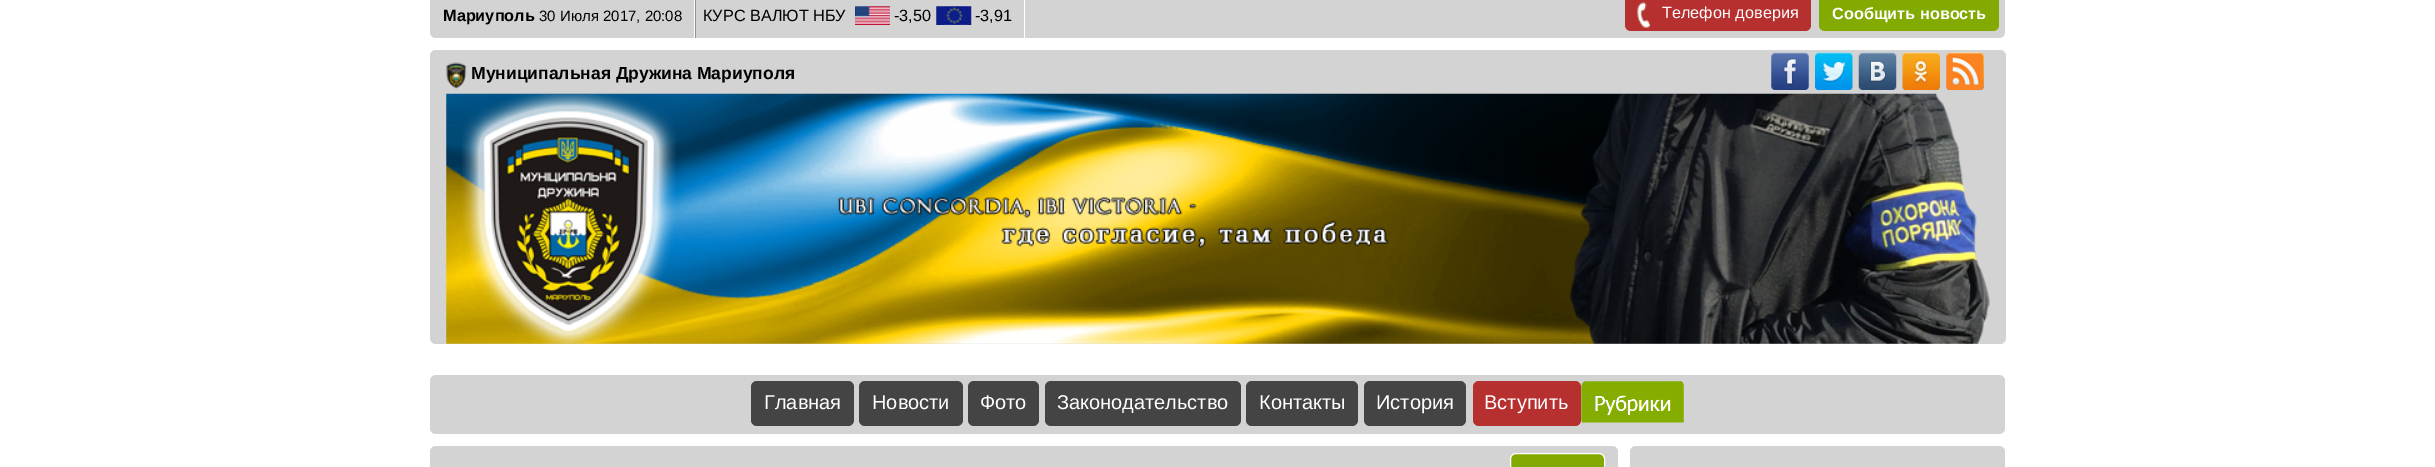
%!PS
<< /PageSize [2435 467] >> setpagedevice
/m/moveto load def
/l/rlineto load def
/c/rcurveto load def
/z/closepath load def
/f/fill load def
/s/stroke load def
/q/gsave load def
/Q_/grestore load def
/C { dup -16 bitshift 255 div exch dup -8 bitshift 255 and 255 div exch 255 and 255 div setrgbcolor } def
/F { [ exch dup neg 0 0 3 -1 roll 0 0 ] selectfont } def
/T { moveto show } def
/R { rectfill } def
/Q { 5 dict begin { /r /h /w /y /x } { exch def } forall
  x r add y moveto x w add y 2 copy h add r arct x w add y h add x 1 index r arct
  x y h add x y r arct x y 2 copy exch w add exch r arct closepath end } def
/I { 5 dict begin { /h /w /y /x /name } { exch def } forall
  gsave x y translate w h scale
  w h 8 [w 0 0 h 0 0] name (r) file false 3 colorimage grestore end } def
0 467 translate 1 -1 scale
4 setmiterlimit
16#FFFFFF C
0 0 2435 467 R
16#D3D3D3 C
430 0 m 1575 0 l 0 32 l 0 3.5 -2.5 6 -6 6 c -1563 0 l -3.5 0 -6 -2.5 -6 -6 c z f
16#FFFFFF C
694 0 1 38 R
/LiberationSans-Bold 16.25 F
16#000000 C
(Мариуполь) 443 21 T
/LiberationSans-Regular 15 F
(30 Июля 2017, 20:08) 539 21 T
16#FFFFFF C
1024 0 1 38 R
16#938F8F C
695 0 1 38 R
/LiberationSans-Regular 16.25 F
16#000000 C
(КУРС ВАЛЮТ НБУ) 703 21 T
(1.rgb) 855 6 35 19 I
(-3,50) 894 21 T
(2.rgb) 936 6 36 19 I
(-3,91) 975 21 T
16#B73030 C
1625 0 m 186 0 l 0 25 l 0 3.5 -2.5 6 -6 6 c -174 0 l -3.5 0 -6 -2.5 -6 -6 c z f
(3.rgb) 1637 2 13 26 I
16#FFFFFF C
(Телефон доверия) 1662 18 T
16#83AA00 C
1819 0 m 180 0 l 0 25 l 0 3.5 -2.5 6 -6 6 c -168 0 l -3.5 0 -6 -2.5 -6 -6 c z f
/LiberationSans-Bold 16.25 F
16#FFFFFF C
(Сообщить новость) 1832 19 T
16#D3D3D3 C
430 50 1576 294 6 Q f
(4.rgb) 446 62 21 27 I
/LiberationSans-Bold 17.5 F
16#000000 C
(Муниципальная Дружина Мариуполя) 471 79 T
(5.rgb) 1771 52 38 38 I
(6.rgb) 1815 52 38 38 I
(7.rgb) 1858 52 39 38 I
(8.rgb) 1902 52 38 38 I
(9.rgb) 1946 52 38 38 I
(10.rgb) 446 93 1544 251 I
(11.rgb) 462 94 214 250 I
(12.rgb) 837 197 552 51 I
16#D3D3D3 C
430 375 1575 59 6 Q f
16#444444 C
751 381 103 45 6 Q f
/LiberationSans-Regular 20 F
16#FFFFFF C
(Главная) 764 409 T
16#444444 C
859 381 104 45 6 Q f
16#FFFFFF C
(Новости) 872 409 T
16#444444 C
968 381 71 45 6 Q f
16#FFFFFF C
(Фото) 980 409 T
16#444444 C
1045 381 196 45 6 Q f
16#FFFFFF C
(Законодательство) 1057 409 T
16#444444 C
1246 381 112 45 6 Q f
16#FFFFFF C
(Контакты) 1259 409 T
16#444444 C
1364 381 102 45 6 Q f
16#FFFFFF C
(История) 1376 409 T
16#B73030 C
1473 381 108 45 6 Q f
16#FFFFFF C
(Вступить) 1484 409 T
(13.rgb) 1581 381 103 42 I
16#D3D3D3 C
430 446 1188 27 6 Q f
16#83AA00 C
1510.5 453.5 94 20 5.5 Q q f Q_
16#FFFFFF C
s
16#D3D3D3 C
1630 446 375 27 6 Q f
showpage
